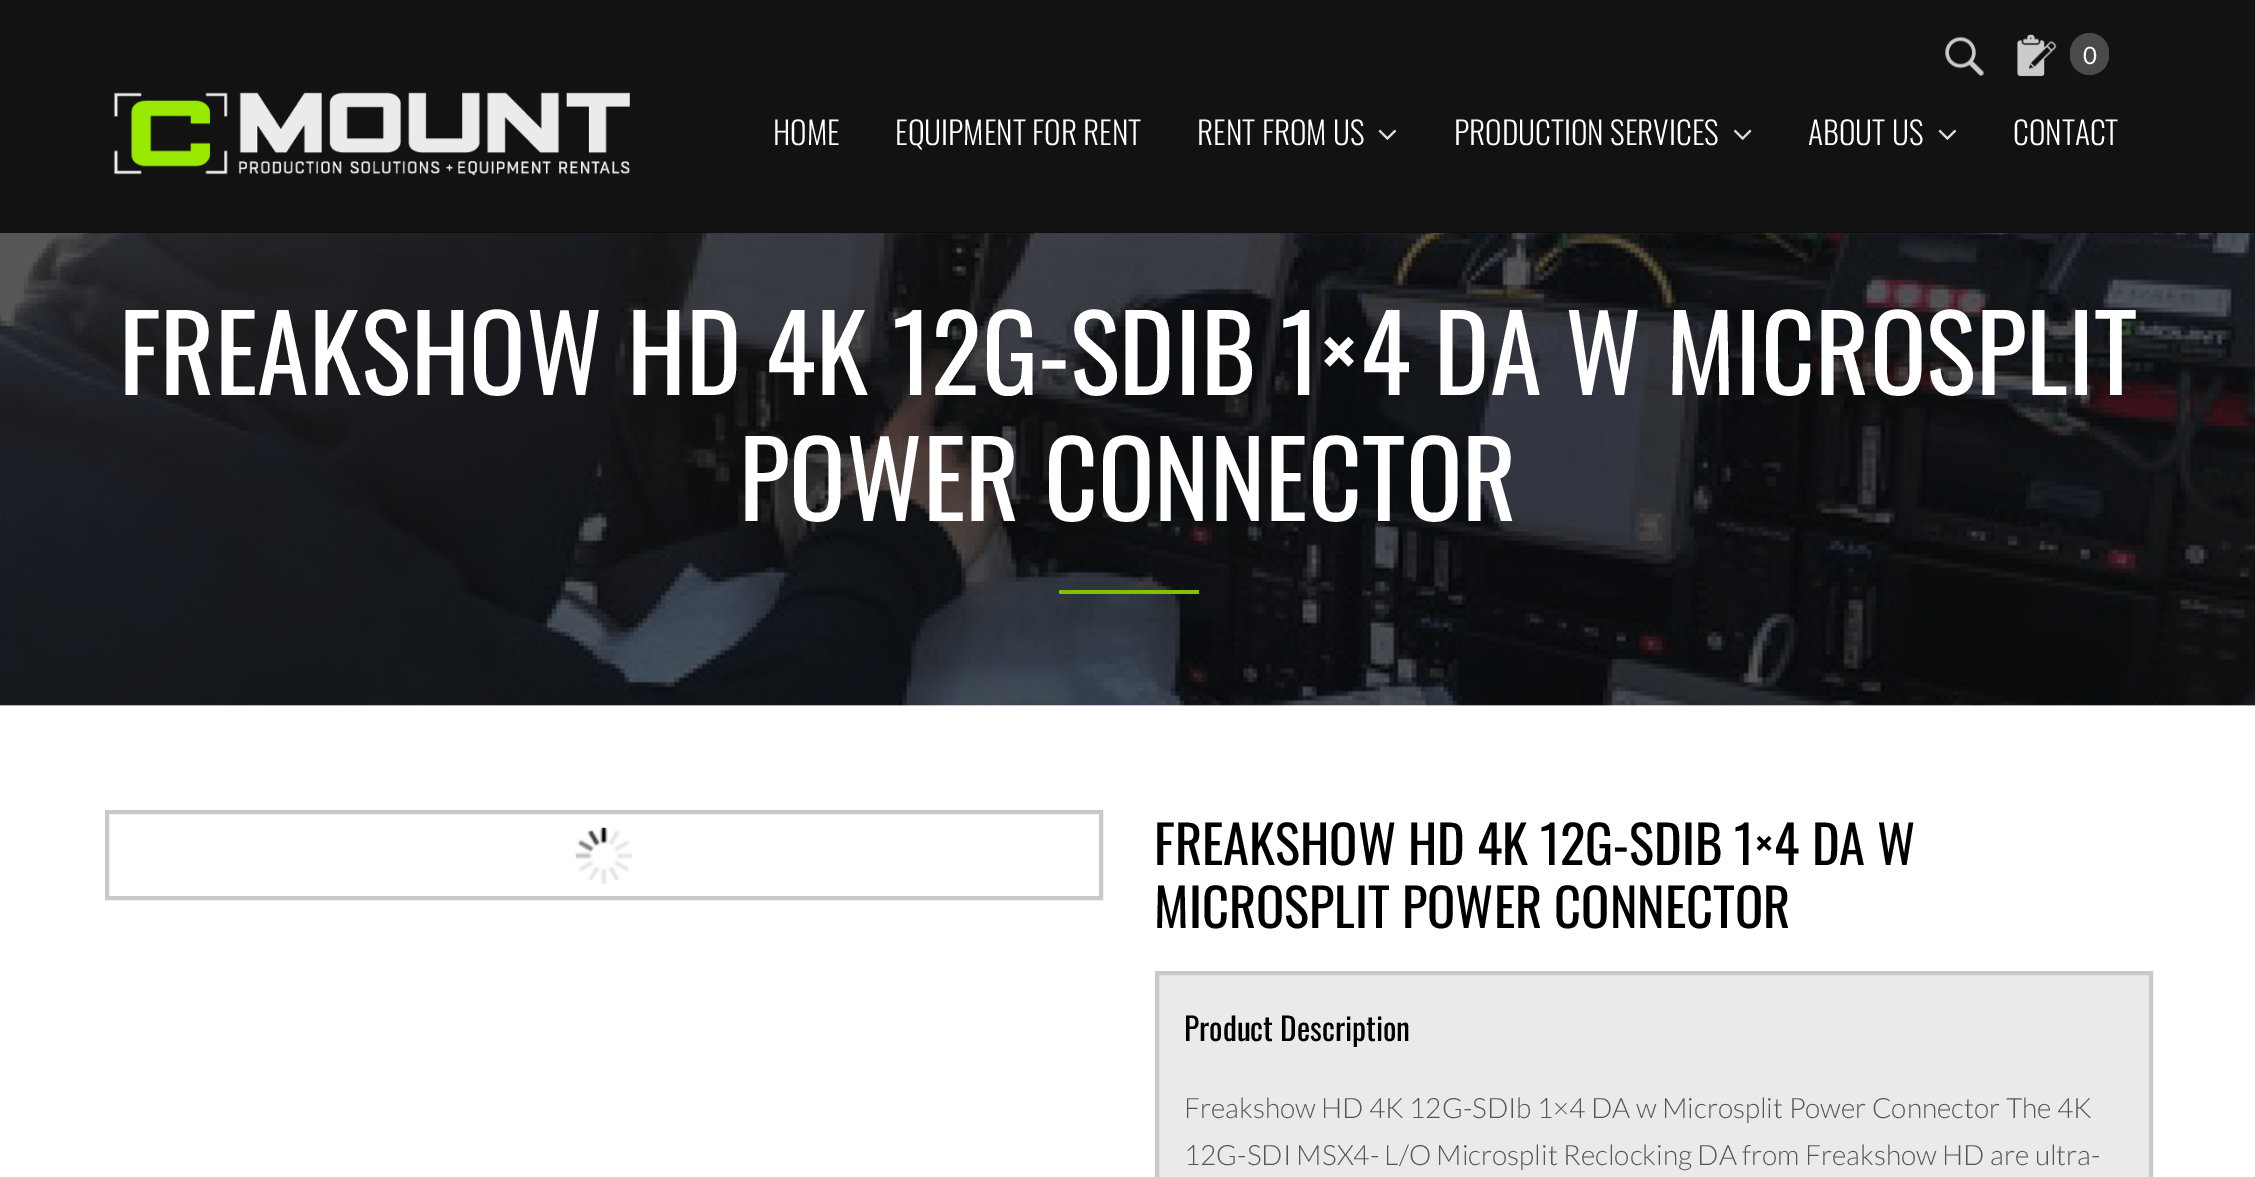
%!PS
<< /PageSize [2255 1177] /PageUsesTransparency true >> setpagedevice
/m/moveto load def
/l/rlineto load def
/z/closepath load def
/f/fill load def
/s/stroke load def
/q/gsave load def
/Q_/grestore load def
/w/setlinewidth load def
/C { dup -16 bitshift 255 div exch dup -8 bitshift 255 and 255 div exch 255 and 255 div setrgbcolor } def
/F { [ exch dup neg 0 0 3 -1 roll 0 0 ] selectfont } def
/T { moveto show } def
/R { rectfill } def
/A { dup .setfillconstantalpha .setstrokeconstantalpha } def
/Q { 5 dict begin { /r /h /w /y /x } { exch def } forall
  x r add y moveto x w add y 2 copy h add r arct x w add y h add x 1 index r arct
  x y h add x y r arct x y 2 copy exch w add exch r arct closepath end } def
/I { 5 dict begin { /h /w /y /x /name } { exch def } forall
  gsave x y translate w h scale
  w h 8 [w 0 0 h 0 0] name (r) file false 3 colorimage grestore end } def
0 .pushpdf14devicefilter
0 1177 translate 1 -1 scale
4 setmiterlimit
16#FFFFFF C
0 0 2255 1177 R
(7.rgb) 0 232 2255 474 I
0.93 A
16#000000 C
0 0 2255 233 R
1 A
(1.rgb) 1945 36 39 40 I
16#4A4A4C C
2070 33 39 42 19.5 Q f
(2.rgb) 2017 34 40 43 I
/Lato-Regular 24 F
16#FFFFFF C
(0) 2083 64 T
(3.rgb) 113 92 517 83 I
/Oswald-Light 31.5 F
(HOME) 773 145 T
(EQUIPMENT FOR RENT) 895 145 T
(RENT FROM US) 1197 145 T
(4.rgb) 1378 129 19 11 I
(PRODUCTION SERVICES) 1454 145 T
(5.rgb) 1733 129 19 11 I
(ABOUT US) 1808 145 T
(6.rgb) 1938 129 19 11 I
(CONTACT) 2013 145 T
/Oswald-Regular 105 F
(FREAKSHOW HD 4K 12G-SDIB 1×4 DA W MICROSPLIT) 119 395 T
(POWER CONNECTOR) 739 521 T
16#80C200 C
1059 590 140 4 R
16#C8C9C9 C
4 w
107 812 994 86 rectstroke
(8.rgb) 575 827 57 57 I
/Oswald-Regular 52.5 F
16#000000 C
(FREAKSHOW HD 4K 12G-SDIB 1×4 DA W) 1154 865 T
(MICROSPLIT POWER CONNECTOR) 1154 928 T
16#EAEAEB C
1157 973 m 994 0 l 0 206 l -994 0 l z q f Q_
16#C8C9C9 C
s
/Oswald-Regular 31.5 F
16#000000 C
(Product Description) 1184 1041 T
/Lato-Light 28 F
16#555555 C
(Freakshow HD 4K 12G-SDIb 1×4 DA w Microsplit Power Connector The 4K) 1184 1118 T
(12G-SDI MSX4- L/O Microsplit Reclocking DA from Freakshow HD are ultra-) 1184 1165 T
.poppdf14devicefilter showpage
